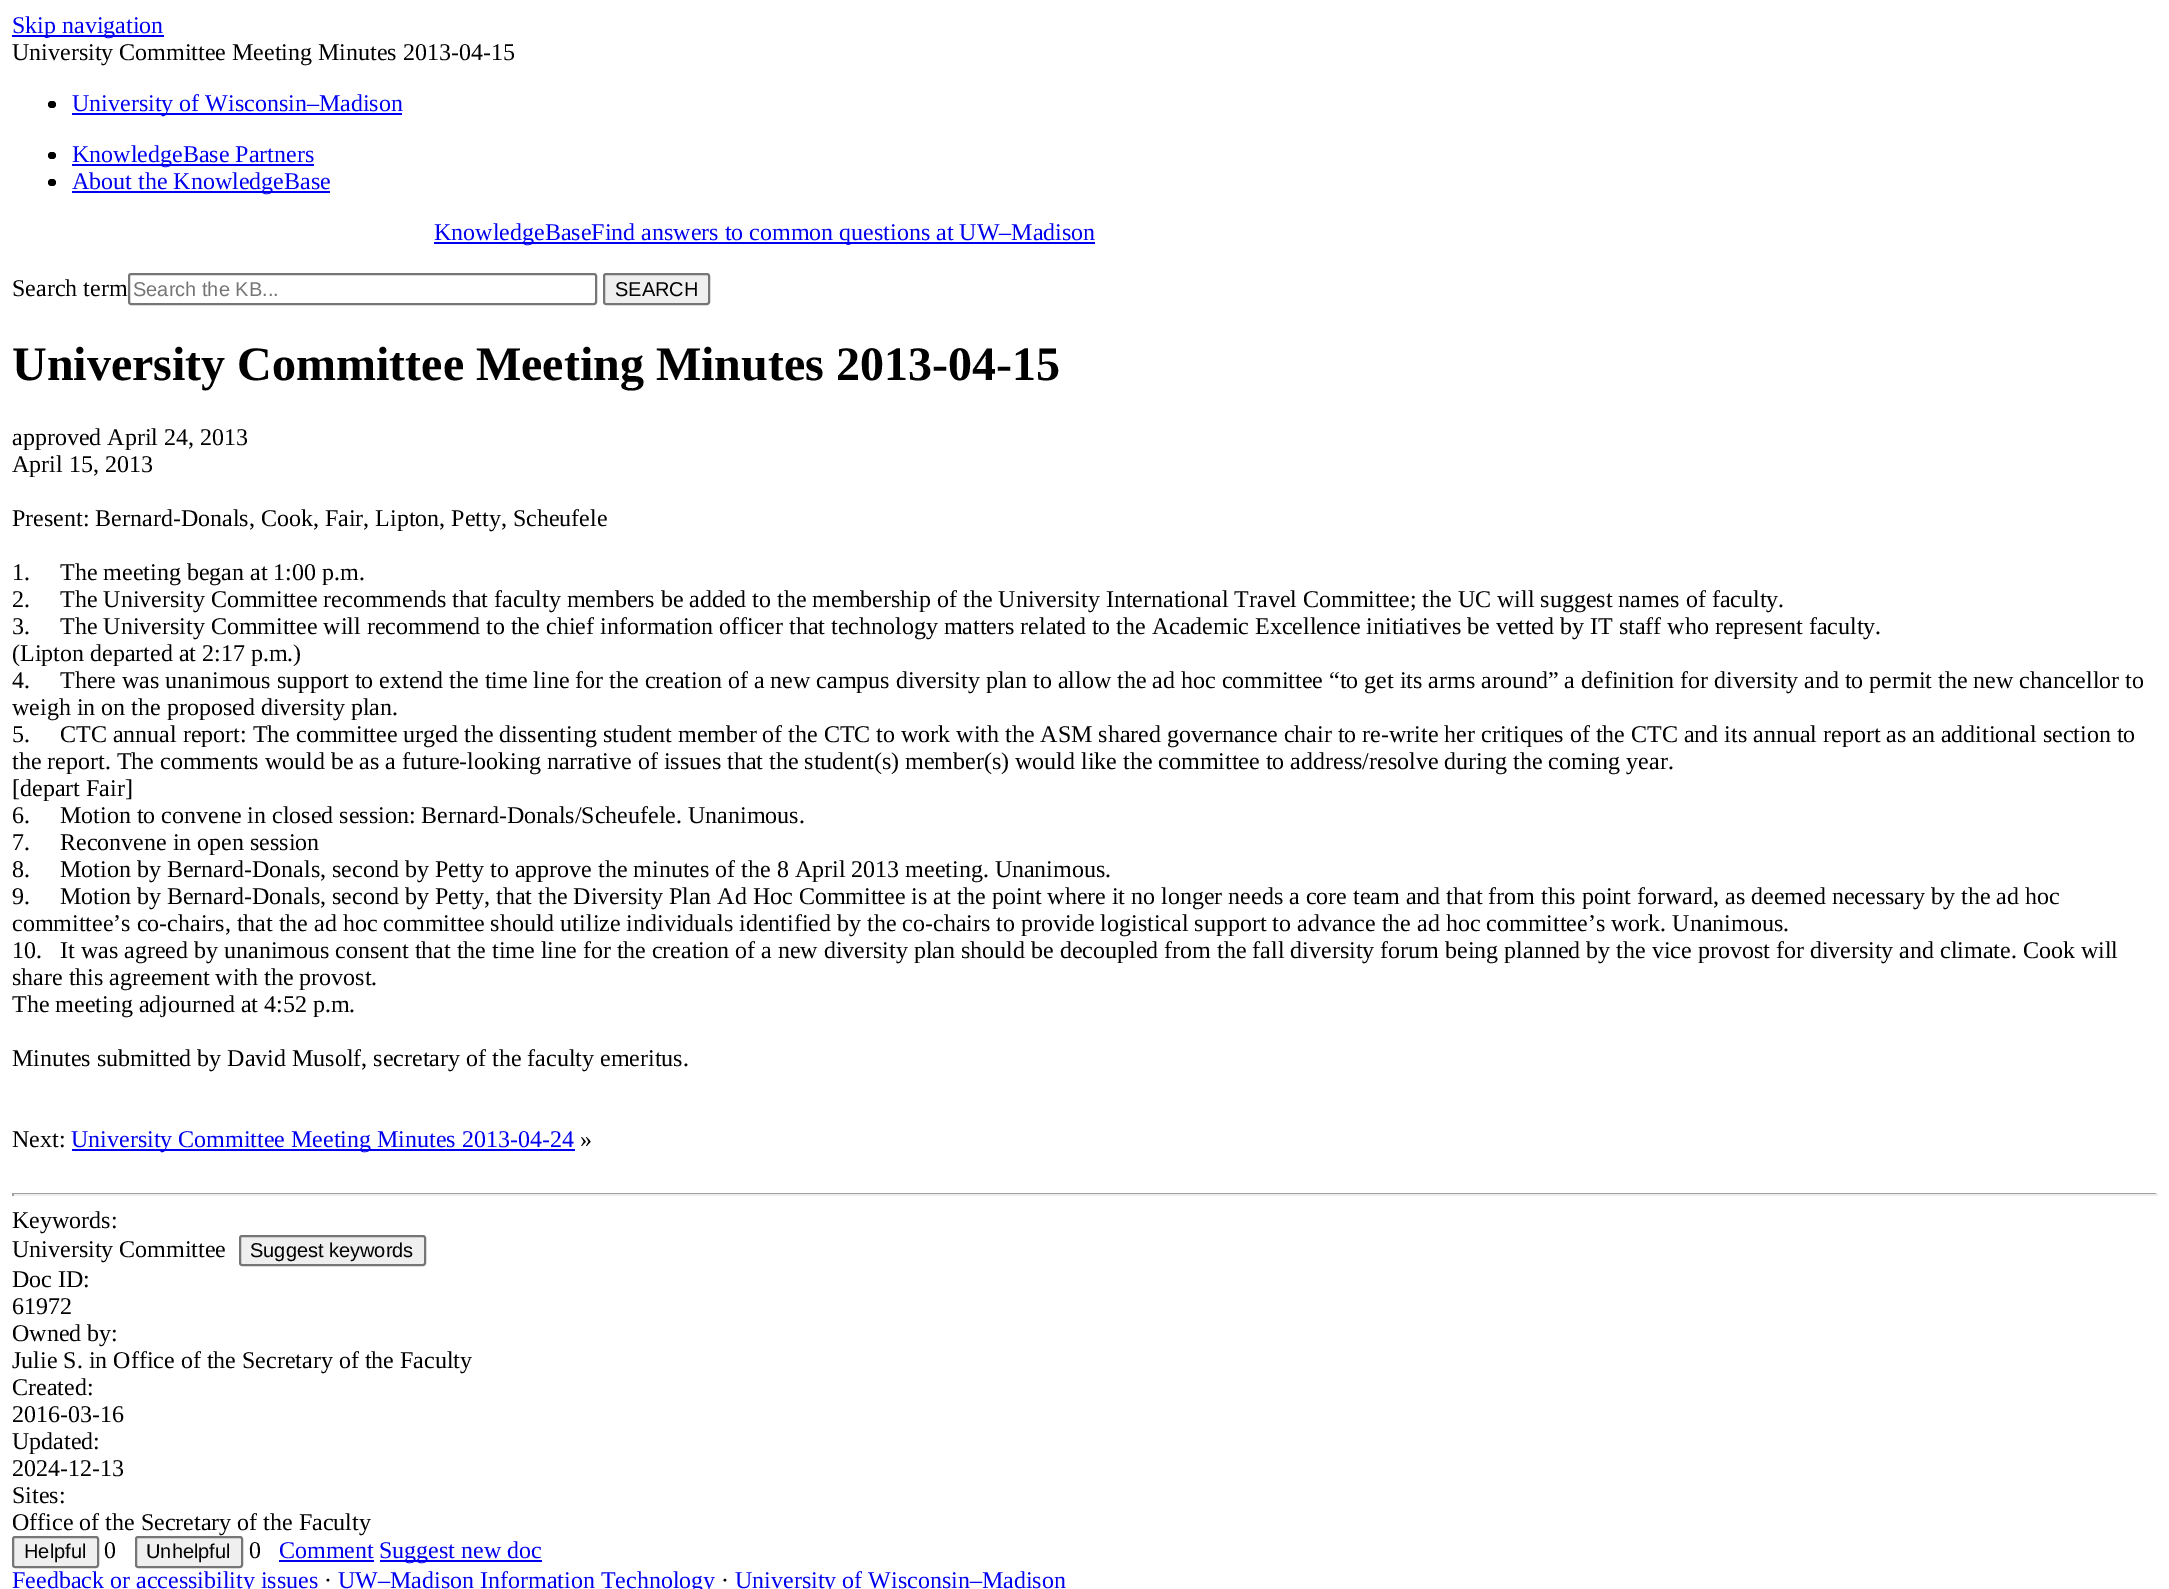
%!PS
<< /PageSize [2169 1589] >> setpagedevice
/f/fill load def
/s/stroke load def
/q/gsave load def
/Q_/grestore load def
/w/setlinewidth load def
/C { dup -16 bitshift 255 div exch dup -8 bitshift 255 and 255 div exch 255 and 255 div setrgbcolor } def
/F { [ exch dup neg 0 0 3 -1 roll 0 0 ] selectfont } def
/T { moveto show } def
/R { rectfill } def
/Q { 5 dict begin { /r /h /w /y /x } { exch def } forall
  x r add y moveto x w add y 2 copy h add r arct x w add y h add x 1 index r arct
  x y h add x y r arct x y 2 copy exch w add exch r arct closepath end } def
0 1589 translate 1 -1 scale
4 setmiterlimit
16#FFFFFF C
0 0 2169 1589 R
16#0000EE C
12 35 152 2 R
/LiberationSerif-Regular 24 F
(Skip navigation) 12 33 T
16#000000 C
(University Committee Meeting Minutes 2013-04-15) 12 60 T
48 101 8 7 3.5 Q f
16#0000EE C
72 113 330 2 R
(University of Wisconsin–Madison) 72 111 T
16#000000 C
48 152 8 7 3.5 Q f
16#0000EE C
72 164 242 2 R
(KnowledgeBase Partners) 72 162 T
16#000000 C
48 179 8 7 3.5 Q f
16#0000EE C
72 191 258 2 R
(About the KnowledgeBase) 72 189 T
434 242 661 2 R
(KnowledgeBaseFind answers to common questions at UW–Madison) 434 240 T
16#000000 C
(Search term) 12 296 T
16#767676 C
2 w
129 274 467 30 2 Q s
/LiberationSans-Regular 20 F
16#757575 C
(Search the KB...) 133 296 T
16#EFEFEF C
604 274 105 30 2 Q q f Q_
16#767676 C
s
16#000000 C
(SEARCH) 615 296 T
/LiberationSerif-Bold 48 F
(University Committee Meeting Minutes 2013-04-15) 12 380 T
/LiberationSerif-Regular 24 F
(approved April 24, 2013) 12 445 T
(April 15, 2013) 12 472 T
(Present: Bernard-Donals, Cook, Fair, Lipton, Petty, Scheufele) 12 526 T
(1.) 12 580 T
(The meeting began at 1:00 p.m.) 60 580 T
(2.) 12 607 T
(The University Committee recommends that faculty members be added to the membership of the University International Travel Committee; the UC will suggest names of faculty.) 60 607 T
(3.) 12 634 T
(The University Committee will recommend to the chief information officer that technology matters related to the Academic Excellence initiatives be vetted by IT staff who represent faculty.) 60 634 T
(\(Lipton departed at 2:17 p.m.\)) 12 661 T
(4.) 12 688 T
(There was unanimous support to extend the time line for the creation of a new campus diversity plan to allow the ad hoc committee “to get its arms around” a definition for diversity and to permit the new chancellor to) 60 688 T
(weigh in on the proposed diversity plan.) 12 715 T
(5.) 12 742 T
(CTC annual report: The committee urged the dissenting student member of the CTC to work with the ASM shared governance chair to re-write her critiques of the CTC and its annual report as an additional section to) 60 742 T
(the report. The comments would be as a future-looking narrative of issues that the student\(s\) member\(s\) would like the committee to address/resolve during the coming year.) 12 769 T
([depart Fair]) 12 796 T
(6.) 12 823 T
(Motion to convene in closed session: Bernard-Donals/Scheufele. Unanimous.) 60 823 T
(7.) 12 850 T
(Reconvene in open session) 60 850 T
(8.) 12 877 T
(Motion by Bernard-Donals, second by Petty to approve the minutes of the 8 April 2013 meeting. Unanimous.) 60 877 T
(9.) 12 904 T
(Motion by Bernard-Donals, second by Petty, that the Diversity Plan Ad Hoc Committee is at the point where it no longer needs a core team and that from this point forward, as deemed necessary by the ad hoc) 60 904 T
(committee’s co-chairs, that the ad hoc committee should utilize individuals identified by the co-chairs to provide logistical support to advance the ad hoc committee’s work. Unanimous.) 12 931 T
(10.) 12 958 T
(It was agreed by unanimous consent that the time line for the creation of a new diversity plan should be decoupled from the fall diversity forum being planned by the vice provost for diversity and climate. Cook will) 60 958 T
(share this agreement with the provost.) 12 985 T
(The meeting adjourned at 4:52 p.m.) 12 1012 T
(Minutes submitted by David Musolf, secretary of the faculty emeritus.) 12 1066 T
(Next:) 12 1147 T
16#0000EE C
72 1149 503 2 R
(University Committee Meeting Minutes 2013-04-24) 71 1147 T
16#000000 C
(») 580 1147 T
16#9F9F9F C
12 1193 2145 1 R
16#EEEEEE C
2156 1193 2 3 R
12 1194 2145 2 R
16#9F9F9F C
12 1193 2 3 R
16#000000 C
(Keywords:) 12 1228 T
(University Committee) 12 1257 T
16#EFEFEF C
240 1236 185 29 2 Q q f Q_
16#767676 C
s
/LiberationSans-Regular 20 F
16#000000 C
(Suggest keywords) 250 1257 T
/LiberationSerif-Regular 24 F
(Doc ID:) 12 1287 T
(61972) 12 1314 T
(Owned by:) 12 1341 T
(Julie S. in Office of the Secretary of the Faculty) 12 1368 T
(Created:) 12 1395 T
(2016-03-16) 12 1422 T
(Updated:) 12 1449 T
(2024-12-13) 12 1476 T
(Sites:) 12 1503 T
(Office of the Secretary of the Faculty) 12 1530 T
16#EFEFEF C
13 1537 85 30 2 Q q f Q_
16#767676 C
s
/LiberationSans-Regular 20 F
16#000000 C
(Helpful) 24 1558 T
/LiberationSerif-Regular 24 F
(0) 104 1558 T
16#EFEFEF C
136 1537 106 30 2 Q q f Q_
16#767676 C
s
/LiberationSans-Regular 20 F
16#000000 C
(Unhelpful) 146 1558 T
/LiberationSerif-Regular 24 F
(0) 249 1558 T
16#0000EE C
(Comment) 279 1558 T
279 1560 95 2 R
380 1560 162 2 R
(Suggest new doc) 379 1558 T
(Feedback or accessibility issues) 12 1588 T
16#000000 C
(·) 324 1588 T
16#0000EE C
(UW–Madison Information Technology) 338 1588 T
16#000000 C
(·) 721 1588 T
16#0000EE C
(University of Wisconsin–Madison) 735 1588 T
showpage
